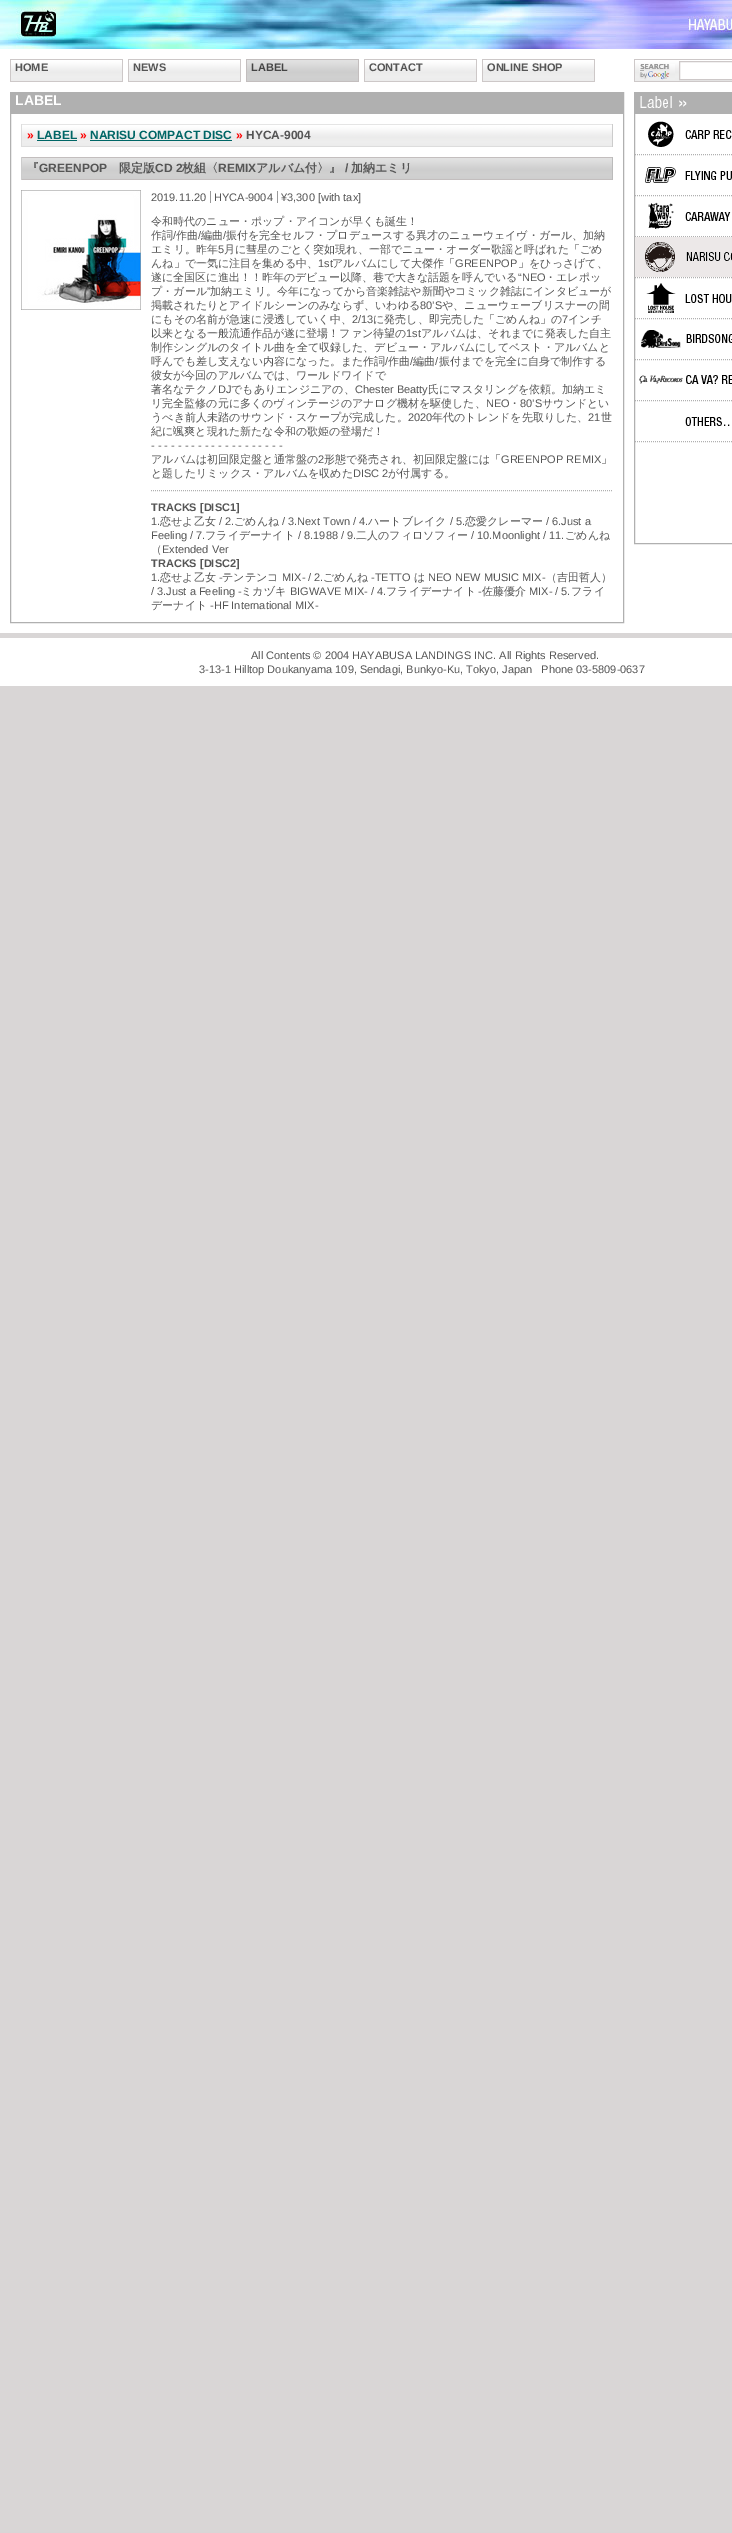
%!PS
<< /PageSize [732 2533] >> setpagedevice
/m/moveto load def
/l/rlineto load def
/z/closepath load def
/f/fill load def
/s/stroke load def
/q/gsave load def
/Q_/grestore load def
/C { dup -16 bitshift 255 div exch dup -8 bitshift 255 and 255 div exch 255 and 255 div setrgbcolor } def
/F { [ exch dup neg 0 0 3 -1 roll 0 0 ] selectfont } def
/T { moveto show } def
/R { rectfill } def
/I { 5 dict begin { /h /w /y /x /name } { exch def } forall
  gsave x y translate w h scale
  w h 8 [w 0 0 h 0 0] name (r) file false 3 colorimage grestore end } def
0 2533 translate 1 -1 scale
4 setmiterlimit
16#D9D6D6 C
0 0 732 2533 R
16#FFFFFF C
0 49 732 584 R
(1.rgb) 0 0 732 49 I
(2.rgb) 10 59 113 23 I
/LiberationSans-Bold 11 F
16#555555 C
(HOME) 15 71 T
(2.rgb) 128 59 113 23 I
(NEWS) 133 71 T
(3.rgb) 246 59 113 23 I
16#444444 C
(LABEL) 251 71 T
(2.rgb) 364 59 113 23 I
16#555555 C
(CONTACT) 369 71 T
(2.rgb) 482 59 113 23 I
(ONLINE SHOP) 487 71 T
(4.rgb) 634 59 98 23 I
(5.rgb) 639 64 36 16 I
16#FFFFFF C
679.5 61.5 m 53 0 l 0 18 l -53 0 l z q f Q_
16#CDC8C8 C
s
16#B0B0B0 C
10.5 92.5 613 530 rectstroke
11 93 612 21 R
/LiberationSans-Bold 14 F
16#FFFFFF C
(LABEL) 15 105 T
16#DDDDDD C
22 146 590 1 R
(6.rgb) 482 124 130 22 I
16#CCCCCC C
612 124 1 23 R
16#DDDDDD C
21 124 1 23 R
(7.rgb) 22 124 460 22 I
/LiberationSans-Bold 12 F
16#FF0000 C
(») 27 139 T
16#006666 C
(LABEL) 37 139 T
37 140 40 1 R
16#FF0000 C
(») 80 139 T
16#006666 C
(NARISU COMPACT DISC) 90 139 T
90 140 142 1 R
16#FF0000 C
(») 236 139 T
16#555555 C
(HYCA-9004) 246 139 T
(8.rgb) 22 157 590 23 I
16#BBBBBB C
612 157 1 23 R
16#CCCCCC C
21 157 1 23 R
/WenQuanYiZenHei-Bold 12 F
16#555555 C
(『) 27 172 T
/LiberationSans-Bold 12 F
(GREENPOP) 39 172 T
/WenQuanYiZenHei-Bold 12 F
(限定版) 119 172 T
/LiberationSans-Bold 12 F
(CD 2) 155 172 T
/WenQuanYiZenHei-Bold 12 F
(枚組〈) 182 172 T
/LiberationSans-Bold 12 F
(REMIX) 218 172 T
/WenQuanYiZenHei-Bold 12 F
(アルバム付〉』) 256 172 T
/LiberationSans-Bold 12 F
(/) 345 172 T
/WenQuanYiZenHei-Bold 12 F
(加納エミリ) 351 172 T
(9.rgb) 21 190 120 120 I
/LiberationSans-Regular 11 F
(2019.11.20) 151 201 T
16#999999 C
210 191 1 12 R
16#555555 C
(HYCA-9004) 214 201 T
16#999999 C
277 191 1 12 R
16#555555 C
(¥3,300 [with tax]) 281 201 T
/WenQuanYiZenHei-Medium 11 F
(令和時代のニュー・ポップ・アイコンが早くも誕生！) 151 225 T
(作詞) 151 239 T
/LiberationSans-Regular 11 F
(/) 173 239 T
/WenQuanYiZenHei-Medium 11 F
(作曲) 176 239 T
/LiberationSans-Regular 11 F
(/) 198 239 T
/WenQuanYiZenHei-Medium 11 F
(編曲) 201 239 T
/LiberationSans-Regular 11 F
(/) 223 239 T
/WenQuanYiZenHei-Medium 11 F
(振付を完全セルフ・プロデュースする異才のニューウェイヴ・ガール、加納) 226 239 T
(エミリ。昨年) 151 253 T
/LiberationSans-Regular 11 F
(5) 218 253 T
/WenQuanYiZenHei-Medium 11 F
(月に彗星のごとく突如現れ、一部でニュー・オーダー歌謡と呼ばれた「ごめ) 224 253 T
(んね」で一気に注目を集める中、) 151 267 T
/LiberationSans-Regular 11 F
(1st) 318 267 T
/WenQuanYiZenHei-Medium 11 F
(アルバムにして大傑作「) 332 267 T
/LiberationSans-Regular 11 F
(GREENPOP) 455 267 T
/WenQuanYiZenHei-Medium 11 F
(」をひっさげて、) 518 267 T
(遂に全国区に進出！！昨年のデビュー以降、巷で大きな話題を呼んでいる) 151 281 T
/LiberationSans-Regular 11 F
(“NEO) 518 281 T
/WenQuanYiZenHei-Medium 11 F
(・エレポッ) 545 281 T
(プ・ガール) 151 295 T
/LiberationSans-Regular 11 F
(”) 207 295 T
/WenQuanYiZenHei-Medium 11 F
(加納エミリ。今年になってから音楽雑誌や新聞やコミック雑誌にインタビューが) 210 295 T
(掲載されたりとアイドルシーンのみならず、いわゆる) 151 309 T
/LiberationSans-Regular 11 F
(80’S) 420 309 T
/WenQuanYiZenHei-Medium 11 F
(や、ニューウェーブリスナーの間) 442 309 T
(にもその名前が急速に浸透していく中、) 151 323 T
/LiberationSans-Regular 11 F
(2/13) 352 323 T
/WenQuanYiZenHei-Medium 11 F
(に発売し、即完売した「ごめんね」の) 373 323 T
/LiberationSans-Regular 11 F
(7) 562 323 T
/WenQuanYiZenHei-Medium 11 F
(インチ) 568 323 T
(以来となる一般流通作品が遂に登場！ファン待望の) 151 337 T
/LiberationSans-Regular 11 F
(1st) 406 337 T
/WenQuanYiZenHei-Medium 11 F
(アルバムは、それまでに発表した自主) 421 337 T
(制作シングルのタイトル曲を全て収録した、デビュー・アルバムにしてベスト・アルバムと) 151 351 T
(呼んでも差し支えない内容になった。また作詞) 151 365 T
/LiberationSans-Regular 11 F
(/) 385 365 T
/WenQuanYiZenHei-Medium 11 F
(作曲) 388 365 T
/LiberationSans-Regular 11 F
(/) 410 365 T
/WenQuanYiZenHei-Medium 11 F
(編曲) 413 365 T
/LiberationSans-Regular 11 F
(/) 435 365 T
/WenQuanYiZenHei-Medium 11 F
(振付までを完全に自身で制作する) 439 365 T
(彼女が今回のアルバムでは、ワールドワイドで) 151 379 T
(著名なテクノ) 151 393 T
/LiberationSans-Regular 11 F
(DJ) 218 393 T
/WenQuanYiZenHei-Medium 11 F
(でもありエンジニアの、) 231 393 T
/LiberationSans-Regular 11 F
(Chester Beatty) 355 393 T
/WenQuanYiZenHei-Medium 11 F
(氏にマスタリングを依頼。加納エミ) 428 393 T
(リ完全監修の元に多くのヴィンテージのアナログ機材を駆使した、) 151 407 T
/LiberationSans-Regular 11 F
(NEO) 486 407 T
/WenQuanYiZenHei-Medium 11 F
(・) 509 407 T
/LiberationSans-Regular 11 F
(80’S) 520 407 T
/WenQuanYiZenHei-Medium 11 F
(サウンドとい) 542 407 T
(うべき前人未踏のサウンド・スケープが完成した。) 151 421 T
/LiberationSans-Regular 11 F
(2020) 408 421 T
/WenQuanYiZenHei-Medium 11 F
(年代のトレンドを先取りした、) 432 421 T
/LiberationSans-Regular 11 F
(21) 588 421 T
/WenQuanYiZenHei-Medium 11 F
(世) 601 421 T
(紀に颯爽と現れた新たな令和の歌姫の登場だ！) 151 435 T
/LiberationSans-Regular 11 F
(- - - - - - - - - - - - - - - - - - - -) 151 449 T
/WenQuanYiZenHei-Medium 11 F
(アルバムは初回限定盤と通常盤の) 151 463 T
/LiberationSans-Regular 11 F
(2) 318 463 T
/WenQuanYiZenHei-Medium 11 F
(形態で発売され、初回限定盤には「) 324 463 T
/LiberationSans-Regular 11 F
(GREENPOP REMIX) 501 463 T
/WenQuanYiZenHei-Medium 11 F
(」) 601 463 T
(と題したリミックス・アルバムを収めた) 151 477 T
/LiberationSans-Regular 11 F
(DISC 2) 353 477 T
/WenQuanYiZenHei-Medium 11 F
(が付属する。) 388 477 T
16#B0B0B0 C
[1 1] 0 setdash
151 490.5 m 462 0 l s
/LiberationSans-Bold 11 F
16#555555 C
(TRACKS [DISC1]) 151 511 T
/LiberationSans-Regular 11 F
(1.) 151 525 T
/WenQuanYiZenHei-Medium 11 F
(恋せよ乙女) 160 525 T
/LiberationSans-Regular 11 F
(/ 2.) 219 525 T
/WenQuanYiZenHei-Medium 11 F
(ごめんね) 234 525 T
/LiberationSans-Regular 11 F
(/ 3.Next Town / 4.) 282 525 T
/WenQuanYiZenHei-Medium 11 F
(ハートブレイク) 368 525 T
/LiberationSans-Regular 11 F
(/ 5.) 450 525 T
/WenQuanYiZenHei-Medium 11 F
(恋愛クレーマー) 465 525 T
/LiberationSans-Regular 11 F
(/ 6.Just a) 546 525 T
(Feeling / 7.) 151 539 T
/WenQuanYiZenHei-Medium 11 F
(フライデーナイト) 205 539 T
/LiberationSans-Regular 11 F
(/ 8.1988 / 9.) 298 539 T
/WenQuanYiZenHei-Medium 11 F
(二人のフィロソフィー) 356 539 T
/LiberationSans-Regular 11 F
(/ 10.Moonlight / 11.) 471 539 T
/WenQuanYiZenHei-Medium 11 F
(ごめんね) 565 539 T
(（) 151 553 T
/LiberationSans-Regular 11 F
(Extended Ver) 162 553 T
/LiberationSans-Bold 11 F
(TRACKS [DISC2]) 151 567 T
/LiberationSans-Regular 11 F
(1.) 151 581 T
/WenQuanYiZenHei-Medium 11 F
(恋せよ乙女) 160 581 T
/LiberationSans-Regular 11 F
(-) 219 581 T
/WenQuanYiZenHei-Medium 11 F
(テンテンコ) 222 581 T
/LiberationSans-Regular 11 F
(MIX- / 2.) 282 581 T
/WenQuanYiZenHei-Medium 11 F
(ごめんね) 323 581 T
/LiberationSans-Regular 11 F
(-TETTO) 371 581 T
/WenQuanYiZenHei-Medium 11 F
(は) 414 581 T
/LiberationSans-Regular 11 F
(NEO NEW MUSIC MIX-) 428 581 T
/WenQuanYiZenHei-Medium 11 F
(（吉田哲人）) 546 581 T
/LiberationSans-Regular 11 F
(/ 3.Just a Feeling -) 151 595 T
/WenQuanYiZenHei-Medium 11 F
(ミカヅキ) 241 595 T
/LiberationSans-Regular 11 F
(BIGWAVE MIX- / 4.) 290 595 T
/WenQuanYiZenHei-Medium 11 F
(フライデーナイト) 386 595 T
/LiberationSans-Regular 11 F
(-) 478 595 T
/WenQuanYiZenHei-Medium 11 F
(佐藤優介) 482 595 T
/LiberationSans-Regular 11 F
(MIX- / 5.) 529 595 T
/WenQuanYiZenHei-Medium 11 F
(フライ) 571 595 T
(デーナイト) 151 609 T
/LiberationSans-Regular 11 F
(-HF International MIX-) 210 609 T
16#B0B0B0 C
[] 0 setdash
634.5 92.5 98 451 rectstroke
635 93 97 21 R
(10.rgb) 640 96 47 12 I
[1 1] 0 setdash
635 154.5 m 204 0 l s
(11.rgb) 648 121 84 26 I
635 195.5 m 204 0 l s
(12.rgb) 645 167 87 16 I
635 236.5 m 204 0 l s
(13.rgb) 648 202 83 27 I
635 277.5 m 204 0 l s
16#ECE8E8 C
635 237 97 40 R
(14.rgb) 645 242 87 30 I
16#B0B0B0 C
635 318.5 m 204 0 l s
(15.rgb) 646 283 86 30 I
635 359.5 m 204 0 l s
(16.rgb) 641 330 91 18 I
635 400.5 m 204 0 l s
(17.rgb) 639 375 93 9 I
635 441.5 m 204 0 l s
(18.rgb) 685 417 45 9 I
16#FFFFFF C
0 638 732 48 R
16#555555 C
(All Contents © 2004 HAYABUSA LANDINGS INC. All Rights Reserved.) 251 659 T
(3-13-1 Hilltop Doukanyama 109, Sendagi, Bunkyo-Ku, Tokyo, Japan   Phone 03-5809-0637) 199 673 T
showpage
